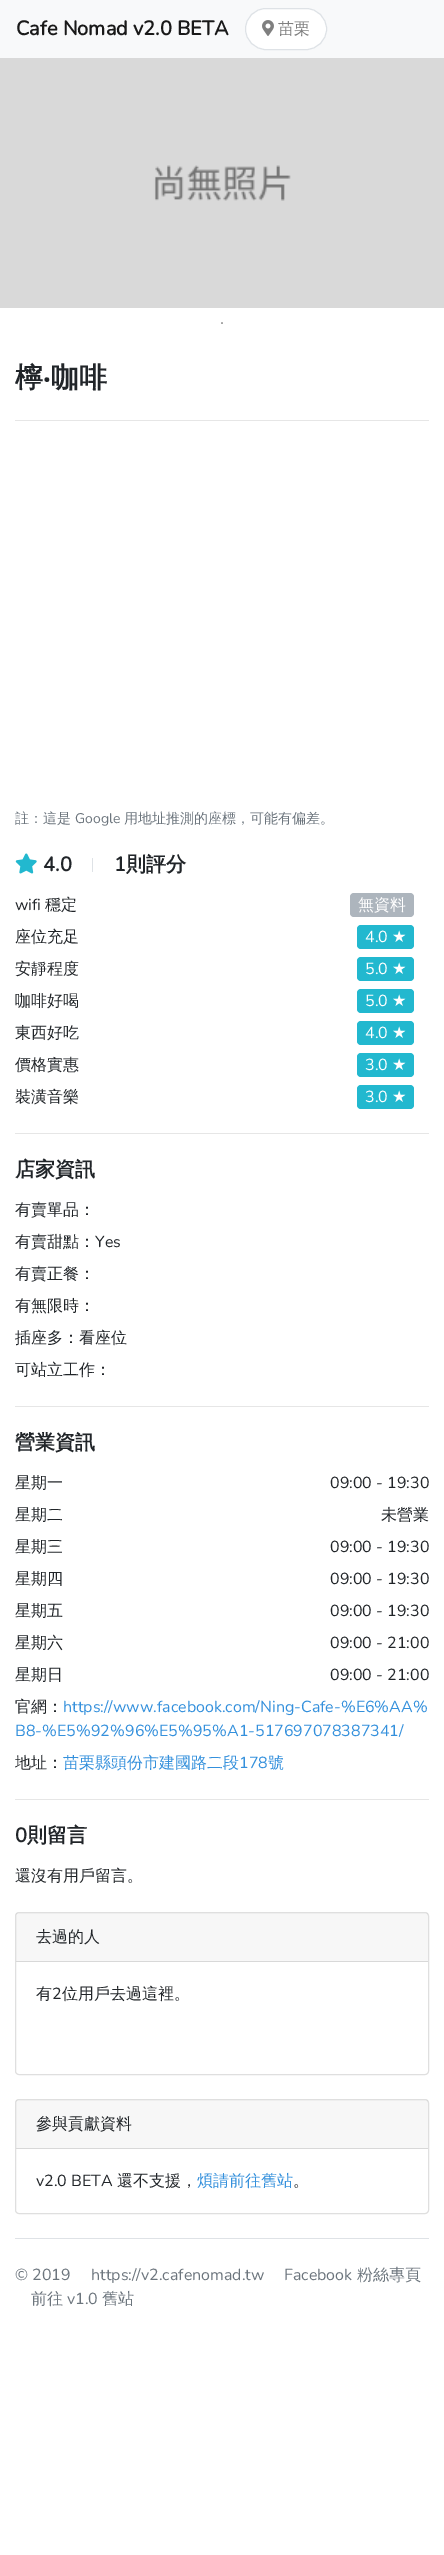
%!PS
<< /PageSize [444 2555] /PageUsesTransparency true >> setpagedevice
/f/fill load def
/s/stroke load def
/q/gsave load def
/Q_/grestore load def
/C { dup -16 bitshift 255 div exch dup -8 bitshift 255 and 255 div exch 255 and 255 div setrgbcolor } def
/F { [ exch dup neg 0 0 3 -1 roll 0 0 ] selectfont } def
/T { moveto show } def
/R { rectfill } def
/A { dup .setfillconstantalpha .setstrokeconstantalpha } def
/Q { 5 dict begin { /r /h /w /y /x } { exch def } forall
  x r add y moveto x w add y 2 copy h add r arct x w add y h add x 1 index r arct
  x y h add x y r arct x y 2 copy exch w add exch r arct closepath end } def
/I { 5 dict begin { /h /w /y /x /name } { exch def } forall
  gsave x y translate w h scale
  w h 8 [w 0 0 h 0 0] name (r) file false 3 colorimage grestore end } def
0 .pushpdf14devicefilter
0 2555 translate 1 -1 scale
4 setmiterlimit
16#FFFFFF C
0 0 444 2555 R
16#F8F9FA C
0 0 444 58 R
/Nunito-Bold 20 F
16#191919 C
(Cafe Nomad v2.0 BETA) 16 35 T
16#FFFFFF C
245.5 8.5 81 41 20.5 Q q f Q_
16#DEE2E6 C
s
(1.rgb) 262 20 12 16 I
/WenQuanYiZenHei-Medium 16 F
16#808080 C
(苗栗) 278 34 T
(2.rgb) 0 58 444 250 I
/LiberationSerif-Regular 6 F
16#404040 C
(•) 221 325 T
/WenQuanYiZenHei-Bold 28 F
16#212529 C
(檸) 15 387 T
/NotoSans-Bold 28 F
(‧) 43 387 T
/WenQuanYiZenHei-Bold 28 F
(咖啡) 51 387 T
16#E6E6E6 C
15 420 414 1 R
/WenQuanYiZenHei-Medium 14 F
16#6C757D C
(註：這是) 15 823 T
/Nunito-ExtraLight 14 F
(Google) 75 823 T
/WenQuanYiZenHei-Medium 14 F
(用地址推測的座標，可能有偏差。) 124 823 T
(3.rgb) 15 853 22 21 I
/Nunito-Bold 20 F
16#212529 C
(4.0) 43 871 T
16#DEE2E6 C
92 858 1 14 R
16#212529 C
(1) 114 871 T
/WenQuanYiZenHei-Bold 20 F
(則評分) 126 871 T
/Nunito-ExtraLight 16 F
(wifi) 15 910 T
/WenQuanYiZenHei-Medium 16 F
(穩定) 45 910 T
16#ADB5BD C
350 893 64 24 4 Q f
16#FFFFFF C
(無資料) 358 910 T
16#212529 C
(座位充足) 15 942 T
16#22B8CF C
357 925 57 24 4 Q f
/Nunito-ExtraLight 16 F
16#FFFFFF C
(4.0) 365 942 T
/DejaVuSans-Regular 16 F
(★) 392 942 T
/WenQuanYiZenHei-Medium 16 F
16#212529 C
(安靜程度) 15 974 T
16#22B8CF C
357 957 57 24 4 Q f
/Nunito-ExtraLight 16 F
16#FFFFFF C
(5.0) 365 974 T
/DejaVuSans-Regular 16 F
(★) 392 974 T
/WenQuanYiZenHei-Medium 16 F
16#212529 C
(咖啡好喝) 15 1006 T
16#22B8CF C
357 989 57 24 4 Q f
/Nunito-ExtraLight 16 F
16#FFFFFF C
(5.0) 365 1006 T
/DejaVuSans-Regular 16 F
(★) 392 1006 T
/WenQuanYiZenHei-Medium 16 F
16#212529 C
(東西好吃) 15 1038 T
16#22B8CF C
357 1021 57 24 4 Q f
/Nunito-ExtraLight 16 F
16#FFFFFF C
(4.0) 365 1038 T
/DejaVuSans-Regular 16 F
(★) 392 1038 T
/WenQuanYiZenHei-Medium 16 F
16#212529 C
(價格實惠) 15 1070 T
16#22B8CF C
357 1053 57 24 4 Q f
/Nunito-ExtraLight 16 F
16#FFFFFF C
(3.0) 365 1070 T
/DejaVuSans-Regular 16 F
(★) 392 1070 T
/WenQuanYiZenHei-Medium 16 F
16#212529 C
(裝潢音樂) 15 1102 T
16#22B8CF C
357 1085 57 24 4 Q f
/Nunito-ExtraLight 16 F
16#FFFFFF C
(3.0) 365 1102 T
/DejaVuSans-Regular 16 F
(★) 392 1102 T
16#E6E6E6 C
15 1133 414 1 R
/WenQuanYiZenHei-Bold 20 F
16#212529 C
(店家資訊) 15 1176 T
/WenQuanYiZenHei-Medium 16 F
(有賣單品：) 15 1215 T
(有賣甜點：) 15 1247 T
/Nunito-ExtraLight 16 F
(Yes) 95 1247 T
/WenQuanYiZenHei-Medium 16 F
(有賣正餐：) 15 1279 T
(有無限時：) 15 1311 T
(插座多：看座位) 15 1343 T
(可站立工作：) 15 1375 T
16#E6E6E6 C
15 1406 414 1 R
/WenQuanYiZenHei-Bold 20 F
16#212529 C
(營業資訊) 15 1449 T
/WenQuanYiZenHei-Medium 16 F
(星期一) 15 1488 T
/Nunito-ExtraLight 16 F
(09:00 - 19:30) 330 1488 T
/WenQuanYiZenHei-Medium 16 F
(星期二) 15 1520 T
(未營業) 381 1520 T
(星期三) 15 1552 T
/Nunito-ExtraLight 16 F
(09:00 - 19:30) 330 1552 T
/WenQuanYiZenHei-Medium 16 F
(星期四) 15 1584 T
/Nunito-ExtraLight 16 F
(09:00 - 19:30) 330 1584 T
/WenQuanYiZenHei-Medium 16 F
(星期五) 15 1616 T
/Nunito-ExtraLight 16 F
(09:00 - 19:30) 330 1616 T
/WenQuanYiZenHei-Medium 16 F
(星期六) 15 1648 T
/Nunito-ExtraLight 16 F
(09:00 - 21:00) 330 1648 T
/WenQuanYiZenHei-Medium 16 F
(星期日) 15 1680 T
/Nunito-ExtraLight 16 F
(09:00 - 21:00) 330 1680 T
/WenQuanYiZenHei-Medium 16 F
(官網：) 15 1712 T
/Nunito-ExtraLight 16 F
16#3490DC C
(https://www.facebook.com/Ning-Cafe-%E6%AA%) 63 1712 T
(B8-%E5%92%96%E5%95%A1-517697078387341/) 15 1736 T
/WenQuanYiZenHei-Medium 16 F
16#212529 C
(地址：) 15 1768 T
16#3490DC C
(苗栗縣頭份市建國路二段) 63 1768 T
/Nunito-ExtraLight 16 F
(178) 239 1768 T
/WenQuanYiZenHei-Medium 16 F
(號) 268 1768 T
16#E6E6E6 C
15 1799 414 1 R
/Nunito-Bold 20 F
16#212529 C
(0) 15 1842 T
/WenQuanYiZenHei-Bold 20 F
(則留言) 27 1842 T
/WenQuanYiZenHei-Medium 16 F
(還沒有用戶留言。) 15 1881 T
16#DFDFDF C
15.5 1912.5 413 162 3.5 Q s
0.03 A
16#000000 C
16 1913 412 48 R
1 A
16#D8D8D8 C
16 1961 412 1 R
16#212529 C
(去過的人) 36 1942 T
(有) 36 1999 T
/Nunito-ExtraLight 16 F
(2) 52 1999 T
/WenQuanYiZenHei-Medium 16 F
(位用戶去過這裡。) 62 1999 T
16#DFDFDF C
15.5 2099.5 413 114 3.5 Q s
0.03 A
16#000000 C
16 2100 412 48 R
1 A
16#D8D8D8 C
16 2148 412 1 R
16#212529 C
(參與貢獻資料) 36 2129 T
/Nunito-ExtraLight 16 F
(v2.0 BETA) 36 2186 T
/WenQuanYiZenHei-Medium 16 F
(還不支援，) 117 2186 T
16#3490DC C
(煩請前往舊站) 197 2186 T
16#212529 C
(。) 293 2186 T
16#DEE2E6 C
15 2238 414 1 R
/Nunito-ExtraLight 16 F
16#6C757D C
(© 2019) 15 2280 T
(https://v2.cafenomad.tw) 91 2280 T
(Facebook) 284 2280 T
/WenQuanYiZenHei-Medium 16 F
(粉絲專頁) 357 2280 T
(前往) 31 2304 T
/Nunito-ExtraLight 16 F
(v1.0) 67 2304 T
/WenQuanYiZenHei-Medium 16 F
(舊站) 102 2304 T
.poppdf14devicefilter showpage
